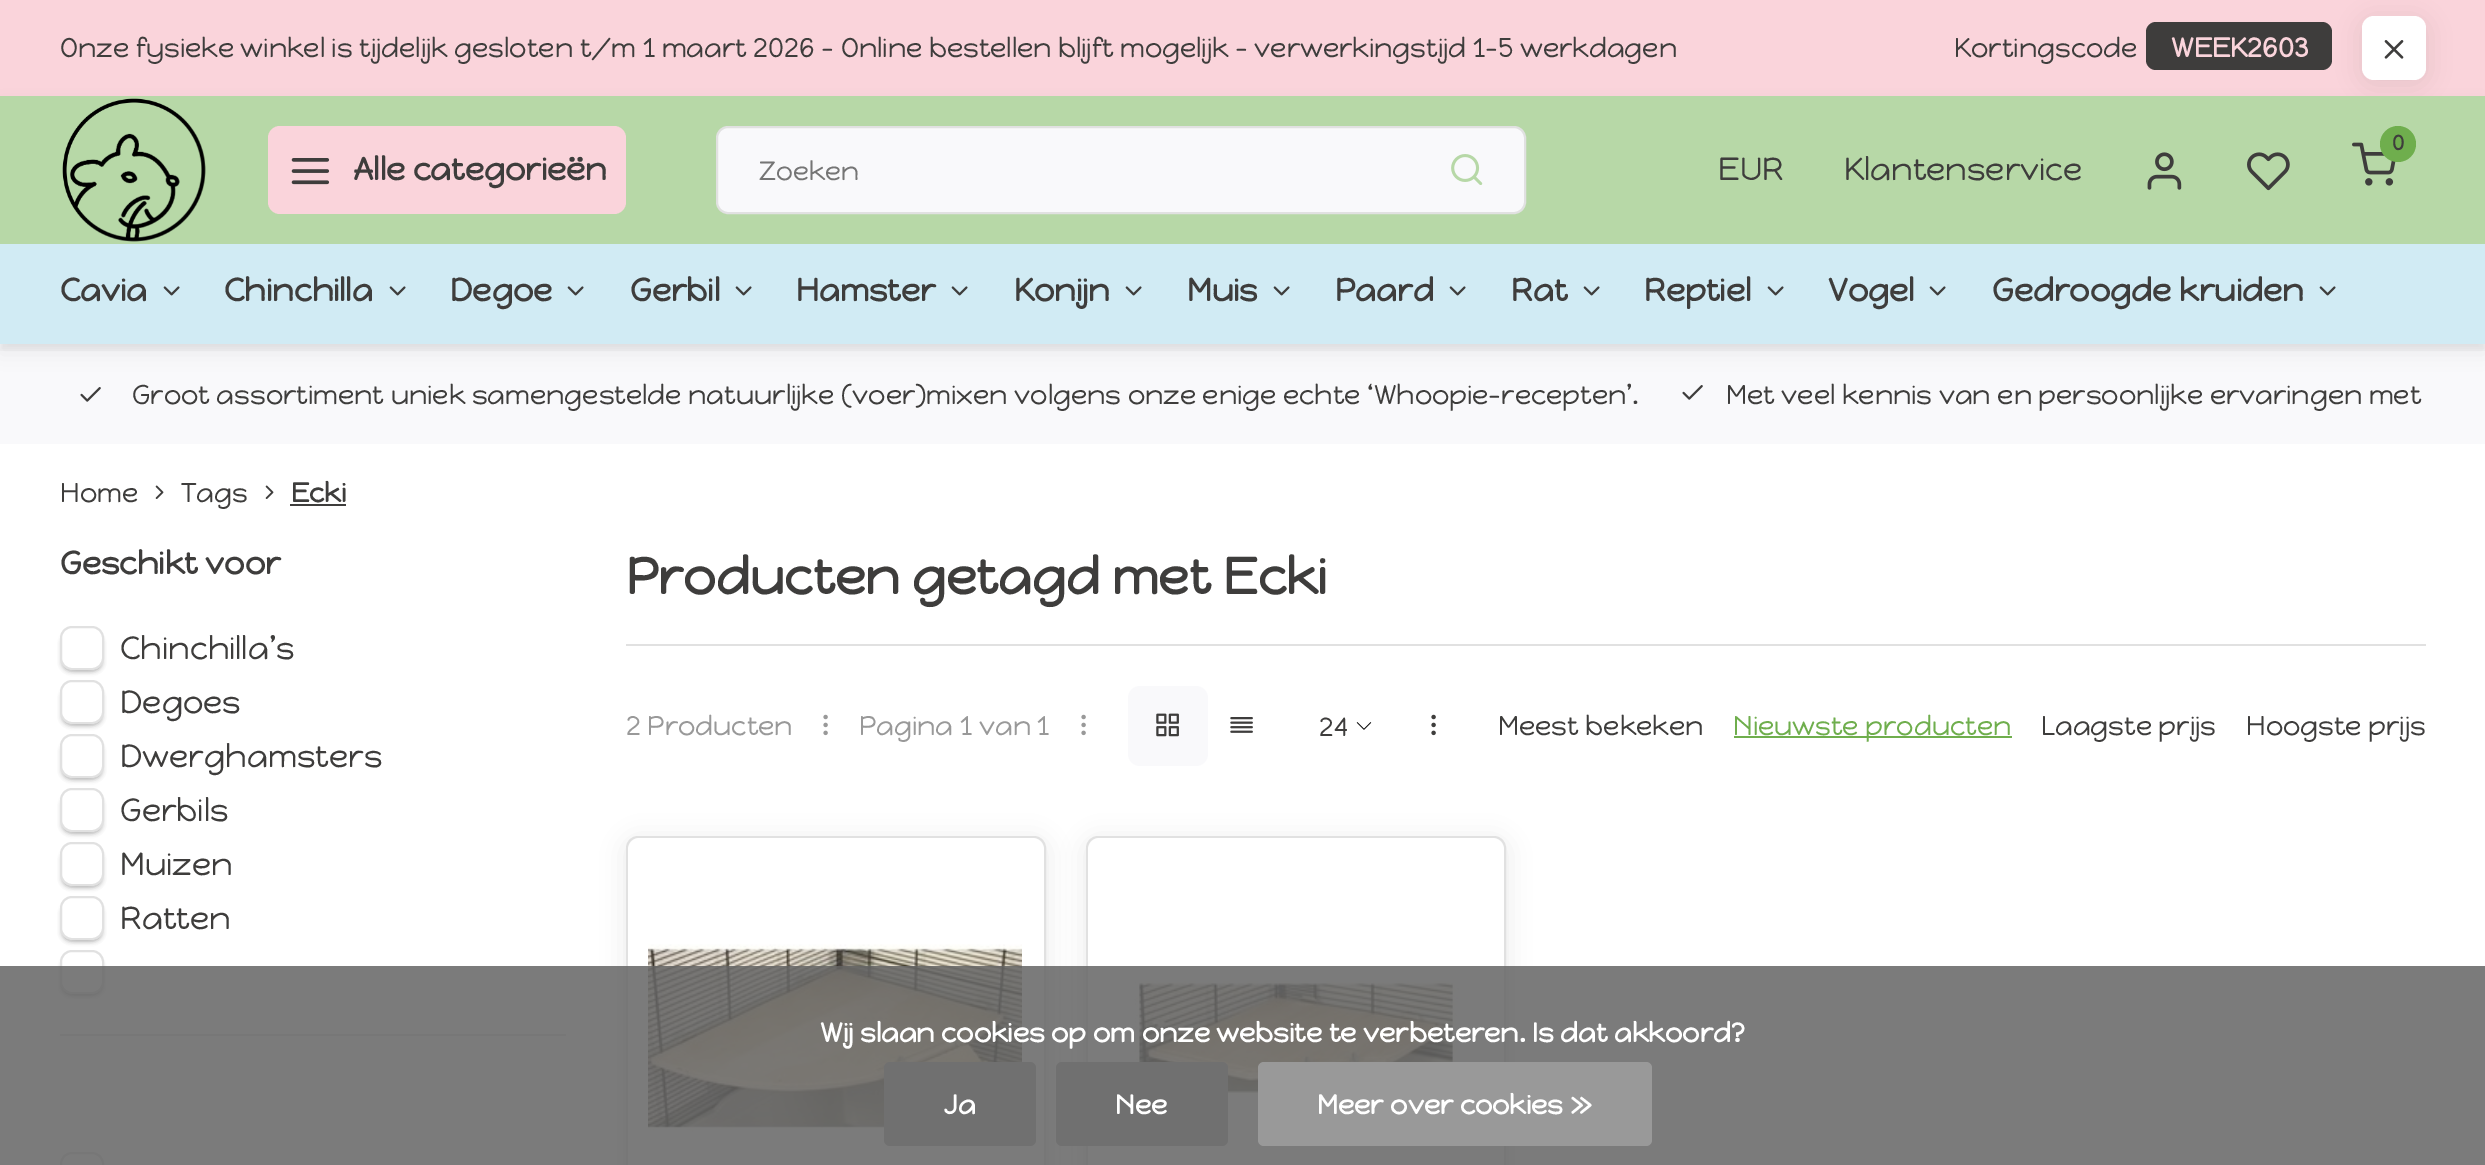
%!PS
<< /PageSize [2485 1165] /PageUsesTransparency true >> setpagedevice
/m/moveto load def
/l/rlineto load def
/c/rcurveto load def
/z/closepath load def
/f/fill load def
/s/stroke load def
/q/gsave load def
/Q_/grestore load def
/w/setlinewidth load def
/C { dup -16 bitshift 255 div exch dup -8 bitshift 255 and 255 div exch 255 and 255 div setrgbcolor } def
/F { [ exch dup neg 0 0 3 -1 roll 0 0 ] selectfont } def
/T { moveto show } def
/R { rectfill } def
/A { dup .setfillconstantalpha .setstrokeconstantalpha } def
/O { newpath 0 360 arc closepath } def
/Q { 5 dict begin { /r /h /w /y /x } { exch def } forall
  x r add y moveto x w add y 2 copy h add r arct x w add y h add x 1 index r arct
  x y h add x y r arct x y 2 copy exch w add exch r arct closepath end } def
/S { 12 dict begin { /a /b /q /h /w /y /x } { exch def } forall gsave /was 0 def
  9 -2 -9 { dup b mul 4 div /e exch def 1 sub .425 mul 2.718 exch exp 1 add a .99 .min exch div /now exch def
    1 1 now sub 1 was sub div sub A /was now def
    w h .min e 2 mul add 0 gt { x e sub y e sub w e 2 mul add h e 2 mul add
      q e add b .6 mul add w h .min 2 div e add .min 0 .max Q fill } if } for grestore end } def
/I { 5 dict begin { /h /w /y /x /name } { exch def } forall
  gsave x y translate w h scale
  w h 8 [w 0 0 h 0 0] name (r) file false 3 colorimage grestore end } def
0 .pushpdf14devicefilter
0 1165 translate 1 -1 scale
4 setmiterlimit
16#FFFFFF C
0 0 2485 1165 R
16#FAD4DB C
0 0 2485 96 R
/HappyMonkey-Regular 27.2 F
16#3E3D3C C
(Onze fysieke winkel is tijdelijk gesloten t/m 1 maart 2026 - Online bestellen blijft mogelijk - verwerkingstijd 1–5 werkdagen) 60 57 T
(Kortingscode) 1954 57 T
2146 22 186 48 10 Q f
/HappyMonkey-Bold 27.2 F
16#FAD4DB C
(WEEK2603) 2171 57 T
16#000000 C
2362 20 64 64 12 12 .08 S
16#FFFFFF C
2362 16 64 64 12 Q f
(1.rgb) 2384 40 20 19 I
16#F9F9FB C
0 344 2485 100 R
16#000000 C
0 106 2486 248 0 10 .05 S
16#B7D8A7 C
0 96 2485 148 R
q
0 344 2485 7 rectclip
16#000000 C
0 102 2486 248 0 4 .05 S
Q_
(2.rgb) 62 98 144 144 I
16#FAD4DB C
268 126 358 88 12 Q f
(3.rgb) 291 158 39 27 I
/HappyMonkey-Bold 32 F
16#3E3D3C C
(Alle categorieën) 353 180 T
16#F9F9FB C
717 127 808 86 11 Q q f Q_
16#E1E1E1 C
2 w
s
/HappyMonkey-Regular 26.5 F
16#757575 C
(Zoeken) 759 180 T
(4.rgb) 1451 154 32 31 I
(5.rgb) 2352 142 44 44 I
16#6FAE4D C
2398 144 18 O f
/HappyMonkey-Bold 21 F
16#3E3D3C C
(0) 2392 150 T
/HappyMonkey-Regular 32 F
(EUR) 1718 180 T
(Klantenservice) 1844 180 T
(6.rgb) 2147 152 35 38 I
(7.rgb) 2247 152 43 39 I
16#D1EBF4 C
0 244 2485 100 R
/HappyMonkey-Bold 32 F
16#3E3D3C C
(Cavia) 60 301 T
(8.rgb) 163 286 17 10 I
(Chinchilla) 224 301 T
(8.rgb) 389 286 17 10 I
(Degoe) 450 301 T
(8.rgb) 567 286 17 10 I
(Gerbil) 630 301 T
(8.rgb) 735 286 17 10 I
(Hamster) 796 301 T
(8.rgb) 951 286 17 10 I
(Konijn) 1014 301 T
(8.rgb) 1125 286 17 10 I
(Muis) 1187 301 T
(8.rgb) 1273 286 17 10 I
(Paard) 1335 301 T
(8.rgb) 1449 286 17 10 I
(Rat) 1511 301 T
(8.rgb) 1583 286 17 10 I
(Reptiel) 1644 301 T
(8.rgb) 1767 286 17 10 I
(Vogel) 1828 301 T
(8.rgb) 1929 286 17 10 I
(Gedroogde kruiden) 1992 301 T
(8.rgb) 2319 286 17 10 I
(9.rgb) 80 387 21 15 I
/HappyMonkey-Regular 27.2 F
(Groot assortiment uniek samengestelde natuurlijke \(voer\)mixen volgens onze enige echte ‘Whoopie-recepten’.) 132 404 T
(9.rgb) 1682 385 21 15 I
(Met veel kennis van en persoonlijke ervaringen met) 1726 404 T
(Home) 60 502 T
(10.rgb) 155 485 9 14 I
(Tags) 181 502 T
(10.rgb) 265 485 9 14 I
/HappyMonkey-Bold 27.2 F
(Ecki) 291 502 T
290 504 56 2 R
16#E1E1E1 C
60 1034 506 2 R
/HappyMonkey-Bold 32 F
16#3E3D3C C
(Geschikt voor) 60 574 T
q
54 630 m 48 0 l 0 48 l -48 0 l z 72 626 m 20 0 l 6.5 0 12 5.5 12 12 c 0 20 l 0 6.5 -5.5 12 -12 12 c -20 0 l -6.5 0 -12 -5.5 -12 -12 c 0 -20 l 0 -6.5 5.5 -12 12 -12 c z eoclip newpath
16#999999 C
64 640 28 28 4 3 1 S
Q_
q
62 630 m 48 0 l 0 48 l -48 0 l z 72 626 m 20 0 l 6.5 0 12 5.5 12 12 c 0 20 l 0 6.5 -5.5 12 -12 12 c -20 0 l -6.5 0 -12 -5.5 -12 -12 c 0 -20 l 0 -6.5 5.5 -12 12 -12 c z eoclip newpath
16#999999 C
72 640 28 28 4 3 1 S
Q_
q
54 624 m 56 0 l 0 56 l -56 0 l z 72 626 m 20 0 l 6.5 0 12 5.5 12 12 c 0 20 l 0 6.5 -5.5 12 -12 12 c -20 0 l -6.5 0 -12 -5.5 -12 -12 c 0 -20 l 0 -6.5 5.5 -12 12 -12 c z eoclip newpath
16#999999 C
64 634 36 36 8 3 1 S
Q_
16#E1E1E1 C
61 627 42 42 11 Q s
/HappyMonkey-Regular 32 F
16#3E3D3C C
(Chinchilla’s) 120 659 T
q
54 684 m 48 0 l 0 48 l -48 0 l z 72 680 m 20 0 l 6.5 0 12 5.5 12 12 c 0 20 l 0 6.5 -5.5 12 -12 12 c -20 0 l -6.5 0 -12 -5.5 -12 -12 c 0 -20 l 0 -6.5 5.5 -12 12 -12 c z eoclip newpath
16#999999 C
64 694 28 28 4 3 1 S
Q_
q
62 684 m 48 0 l 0 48 l -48 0 l z 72 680 m 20 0 l 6.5 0 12 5.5 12 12 c 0 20 l 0 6.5 -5.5 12 -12 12 c -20 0 l -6.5 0 -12 -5.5 -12 -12 c 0 -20 l 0 -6.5 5.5 -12 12 -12 c z eoclip newpath
16#999999 C
72 694 28 28 4 3 1 S
Q_
q
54 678 m 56 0 l 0 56 l -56 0 l z 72 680 m 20 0 l 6.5 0 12 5.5 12 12 c 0 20 l 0 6.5 -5.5 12 -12 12 c -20 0 l -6.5 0 -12 -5.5 -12 -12 c 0 -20 l 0 -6.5 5.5 -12 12 -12 c z eoclip newpath
16#999999 C
64 688 36 36 8 3 1 S
Q_
16#E1E1E1 C
61 681 42 42 11 Q s
16#3E3D3C C
(Degoes) 120 713 T
q
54 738 m 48 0 l 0 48 l -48 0 l z 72 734 m 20 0 l 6.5 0 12 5.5 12 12 c 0 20 l 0 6.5 -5.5 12 -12 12 c -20 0 l -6.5 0 -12 -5.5 -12 -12 c 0 -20 l 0 -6.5 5.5 -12 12 -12 c z eoclip newpath
16#999999 C
64 748 28 28 4 3 1 S
Q_
q
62 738 m 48 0 l 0 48 l -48 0 l z 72 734 m 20 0 l 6.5 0 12 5.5 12 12 c 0 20 l 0 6.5 -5.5 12 -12 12 c -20 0 l -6.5 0 -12 -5.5 -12 -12 c 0 -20 l 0 -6.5 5.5 -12 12 -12 c z eoclip newpath
16#999999 C
72 748 28 28 4 3 1 S
Q_
q
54 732 m 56 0 l 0 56 l -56 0 l z 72 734 m 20 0 l 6.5 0 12 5.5 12 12 c 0 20 l 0 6.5 -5.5 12 -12 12 c -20 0 l -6.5 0 -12 -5.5 -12 -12 c 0 -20 l 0 -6.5 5.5 -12 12 -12 c z eoclip newpath
16#999999 C
64 742 36 36 8 3 1 S
Q_
16#E1E1E1 C
61 735 42 42 11 Q s
16#3E3D3C C
(Dwerghamsters) 120 767 T
q
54 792 m 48 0 l 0 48 l -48 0 l z 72 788 m 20 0 l 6.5 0 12 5.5 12 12 c 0 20 l 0 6.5 -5.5 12 -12 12 c -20 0 l -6.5 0 -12 -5.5 -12 -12 c 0 -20 l 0 -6.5 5.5 -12 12 -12 c z eoclip newpath
16#999999 C
64 802 28 28 4 3 1 S
Q_
q
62 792 m 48 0 l 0 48 l -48 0 l z 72 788 m 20 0 l 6.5 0 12 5.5 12 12 c 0 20 l 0 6.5 -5.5 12 -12 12 c -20 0 l -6.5 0 -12 -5.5 -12 -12 c 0 -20 l 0 -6.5 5.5 -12 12 -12 c z eoclip newpath
16#999999 C
72 802 28 28 4 3 1 S
Q_
q
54 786 m 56 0 l 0 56 l -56 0 l z 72 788 m 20 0 l 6.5 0 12 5.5 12 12 c 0 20 l 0 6.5 -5.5 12 -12 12 c -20 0 l -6.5 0 -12 -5.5 -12 -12 c 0 -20 l 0 -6.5 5.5 -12 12 -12 c z eoclip newpath
16#999999 C
64 796 36 36 8 3 1 S
Q_
16#E1E1E1 C
61 789 42 42 11 Q s
16#3E3D3C C
(Gerbils) 120 821 T
q
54 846 m 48 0 l 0 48 l -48 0 l z 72 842 m 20 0 l 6.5 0 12 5.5 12 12 c 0 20 l 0 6.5 -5.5 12 -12 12 c -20 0 l -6.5 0 -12 -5.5 -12 -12 c 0 -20 l 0 -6.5 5.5 -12 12 -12 c z eoclip newpath
16#999999 C
64 856 28 28 4 3 1 S
Q_
q
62 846 m 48 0 l 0 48 l -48 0 l z 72 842 m 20 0 l 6.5 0 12 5.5 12 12 c 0 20 l 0 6.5 -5.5 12 -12 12 c -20 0 l -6.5 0 -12 -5.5 -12 -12 c 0 -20 l 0 -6.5 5.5 -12 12 -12 c z eoclip newpath
16#999999 C
72 856 28 28 4 3 1 S
Q_
q
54 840 m 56 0 l 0 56 l -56 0 l z 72 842 m 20 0 l 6.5 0 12 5.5 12 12 c 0 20 l 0 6.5 -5.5 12 -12 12 c -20 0 l -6.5 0 -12 -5.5 -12 -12 c 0 -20 l 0 -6.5 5.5 -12 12 -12 c z eoclip newpath
16#999999 C
64 850 36 36 8 3 1 S
Q_
16#E1E1E1 C
61 843 42 42 11 Q s
16#3E3D3C C
(Muizen) 120 875 T
q
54 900 m 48 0 l 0 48 l -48 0 l z 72 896 m 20 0 l 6.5 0 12 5.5 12 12 c 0 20 l 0 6.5 -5.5 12 -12 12 c -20 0 l -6.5 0 -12 -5.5 -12 -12 c 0 -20 l 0 -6.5 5.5 -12 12 -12 c z eoclip newpath
16#999999 C
64 910 28 28 4 3 1 S
Q_
q
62 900 m 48 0 l 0 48 l -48 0 l z 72 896 m 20 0 l 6.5 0 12 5.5 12 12 c 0 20 l 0 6.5 -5.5 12 -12 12 c -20 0 l -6.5 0 -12 -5.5 -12 -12 c 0 -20 l 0 -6.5 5.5 -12 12 -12 c z eoclip newpath
16#999999 C
72 910 28 28 4 3 1 S
Q_
q
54 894 m 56 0 l 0 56 l -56 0 l z 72 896 m 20 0 l 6.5 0 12 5.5 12 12 c 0 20 l 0 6.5 -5.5 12 -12 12 c -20 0 l -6.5 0 -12 -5.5 -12 -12 c 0 -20 l 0 -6.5 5.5 -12 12 -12 c z eoclip newpath
16#999999 C
64 904 36 36 8 3 1 S
Q_
16#E1E1E1 C
61 897 42 42 11 Q s
16#3E3D3C C
(Ratten) 120 929 T
q
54 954 m 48 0 l 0 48 l -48 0 l z 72 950 m 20 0 l 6.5 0 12 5.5 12 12 c 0 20 l 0 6.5 -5.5 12 -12 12 c -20 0 l -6.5 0 -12 -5.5 -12 -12 c 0 -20 l 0 -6.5 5.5 -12 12 -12 c z eoclip newpath
16#999999 C
64 964 28 28 4 3 1 S
Q_
q
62 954 m 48 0 l 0 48 l -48 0 l z 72 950 m 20 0 l 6.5 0 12 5.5 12 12 c 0 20 l 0 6.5 -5.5 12 -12 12 c -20 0 l -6.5 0 -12 -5.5 -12 -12 c 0 -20 l 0 -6.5 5.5 -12 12 -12 c z eoclip newpath
16#999999 C
72 964 28 28 4 3 1 S
Q_
q
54 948 m 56 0 l 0 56 l -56 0 l z 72 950 m 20 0 l 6.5 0 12 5.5 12 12 c 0 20 l 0 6.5 -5.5 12 -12 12 c -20 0 l -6.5 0 -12 -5.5 -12 -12 c 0 -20 l 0 -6.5 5.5 -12 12 -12 c z eoclip newpath
16#999999 C
64 958 36 36 8 3 1 S
Q_
16#E1E1E1 C
61 951 42 42 11 Q s
61 1153 42 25 11 Q s
/HappyMonkey-Bold 51.25 F
16#3E3D3C C
(Producten getagd met Ecki) 626 594 T
16#E1E1E1 C
626 644 1800 2 R
/HappyMonkey-Regular 27.2 F
16#999999 C
(2 Producten) 626 735 T
(11.rgb) 823 714 5 22 I
(Pagina 1 van 1) 859 735 T
(11.rgb) 1081 714 5 22 I
16#F9F9FB C
1128 686 80 80 12 Q f
(12.rgb) 1156 713 23 24 I
(13.rgb) 1230 717 23 16 I
(14.rgb) 1356 722 16 8 I
/HappyMonkey-Regular 26.5 F
16#3E3D3C C
(24) 1319 736 T
(15.rgb) 1431 714 5 22 I
/HappyMonkey-Regular 27.2 F
(Meest bekeken) 1498 735 T
16#6FAE4D C
1734 736 278 2 R
(Nieuwste producten) 1733 735 T
16#3E3D3C C
(Laagste prijs) 2041 735 T
(Hoogste prijs) 2246 735 T
16#000000 C
626 840 420 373 12 12 .08 S
16#E1E1E1 C
627 837 418 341 11 Q s
16#FFFFFF C
640 838 m 392 0 l 6.5 0 12 5.5 12 12 c 0 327 l -416 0 l 0 -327 l 0 -6.5 5.5 -12 12 -12 c z f
(16.rgb) 648 944 374 188 I
16#000000 C
1086 840 420 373 12 12 .08 S
16#E1E1E1 C
1087 837 418 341 11 Q s
16#FFFFFF C
1100 838 m 392 0 l 6.5 0 12 5.5 12 12 c 0 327 l -416 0 l 0 -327 l 0 -6.5 5.5 -12 12 -12 c z f
(17.rgb) 1133 981 326 117 I
0.85 A
16#646464 C
0 966 2485 199 R
/HappyMonkey-Bold 27.2 F
1 A
16#FFFFFF C
(Wij slaan cookies op om onze website te verbeteren. Is dat akkoord?) 820 1042 T
16#707070 C
884 1062 152 84 6 Q f
16#FFFFFF C
(Ja) 944 1114 T
16#707070 C
1056 1062 172 84 6 Q f
16#FFFFFF C
(Nee) 1115 1114 T
16#999999 C
1258 1062 394 84 6 Q f
16#FFFFFF C
(Meer over cookies ») 1317 1114 T
.poppdf14devicefilter showpage
